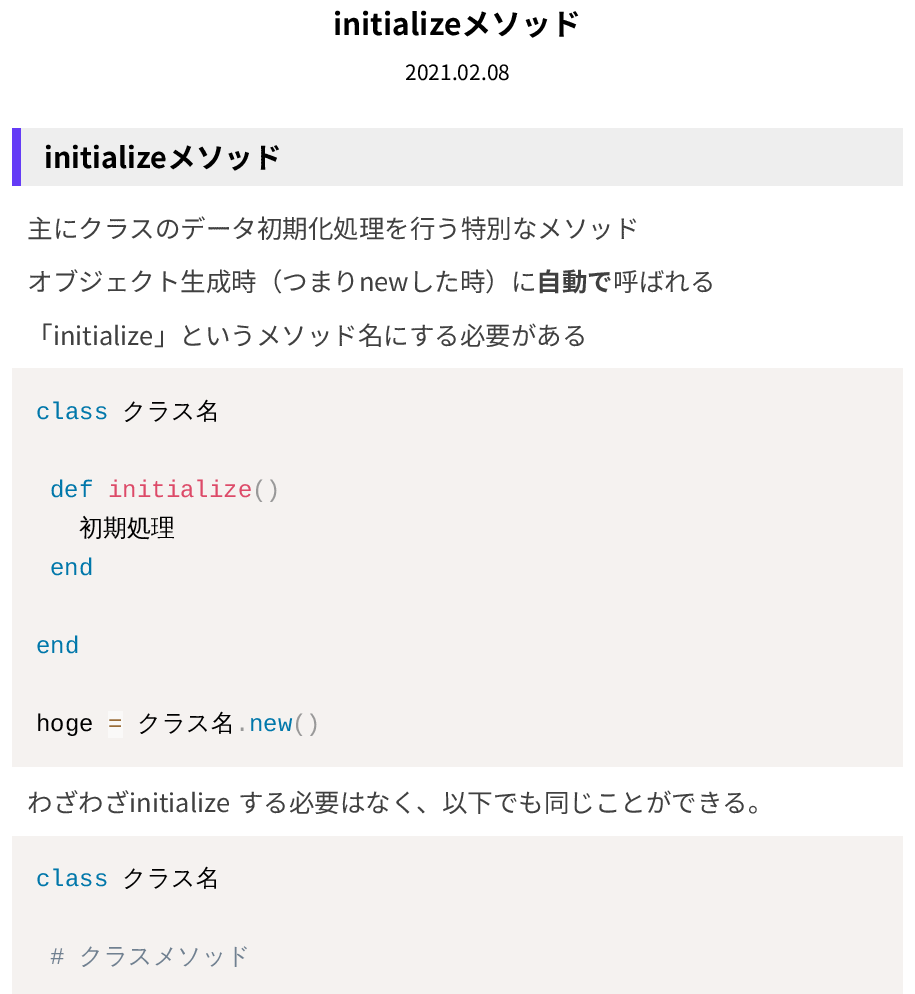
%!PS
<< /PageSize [915 994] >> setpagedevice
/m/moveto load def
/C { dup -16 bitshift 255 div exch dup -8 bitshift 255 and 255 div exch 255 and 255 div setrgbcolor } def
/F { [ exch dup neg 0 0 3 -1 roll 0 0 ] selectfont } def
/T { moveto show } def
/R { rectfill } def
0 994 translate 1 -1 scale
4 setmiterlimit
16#FFFFFF C
0 0 915 994 R
/NotoSansJP-Bold 30 F
16#000000 C
(initializeメソッド) 333 35 T
/NotoSansJP-Regular 21 F
(2021.02.08) 405 80 T
16#EEEEEE C
21 128 882 58 R
16#643BF6 C
12 128 9 58 R
/NotoSansJP-Bold 28.75 F
16#000000 C
(initializeメソッド) 44 168 T
/NotoSansJP-Regular 25.5 F
16#404040 C
(主にクラスのデータ初期化処理を行う特別なメソッド) 27 238 T
(オブジェクト生成時（つまりnewした時）に) 27 291 T
/NotoSansJP-Bold 25.5 F
(自動で) 536 291 T
/NotoSansJP-Regular 25.5 F
(呼ばれる) 613 291 T
(「initialize」というメソッド名にする必要がある) 27 345 T
16#F5F2F0 C
12 368 891 399 R
/LiberationMono-Regular 24 F
16#0077AA C
(class) 36 419 T
/WenQuanYiZenHei-Medium 24 F
16#000000 C
(クラス名) 122 419 T
/LiberationMono-Regular 24 F
16#0077AA C
(def) 50 497 T
16#DD4A68 C
(initialize) 108 497 T
16#999999 C
(\(\)) 252 497 T
/WenQuanYiZenHei-Medium 24 F
16#000000 C
(初期処理) 79 536 T
/LiberationMono-Regular 24 F
16#0077AA C
(end) 50 575 T
(end) 36 653 T
16#000000 C
(hoge) 36 731 T
16#FAF9F8 C
108 711 15 27 R
16#9A6E3A C
(=) 108 731 T
/WenQuanYiZenHei-Medium 24 F
16#000000 C
(クラス名) 137 731 T
/LiberationMono-Regular 24 F
16#0077AA C
(new) 249 731 T
16#999999 C
(\(\)) 292 731 T
(.) 235 731 T
/NotoSansJP-Regular 25.5 F
16#404040 C
27 812 m 2 0 32 (わざわざinitialize する必要はなく、以下でも同じことができる。) widthshow
16#F5F2F0 C
12 836 891 158 R
/LiberationMono-Regular 24 F
16#0077AA C
(class) 36 886 T
/WenQuanYiZenHei-Medium 24 F
16#000000 C
(クラス名) 122 886 T
/LiberationMono-Regular 24 F
16#708090 C
(#) 50 964 T
/WenQuanYiZenHei-Medium 24 F
(クラスメソッド) 79 964 T
showpage
